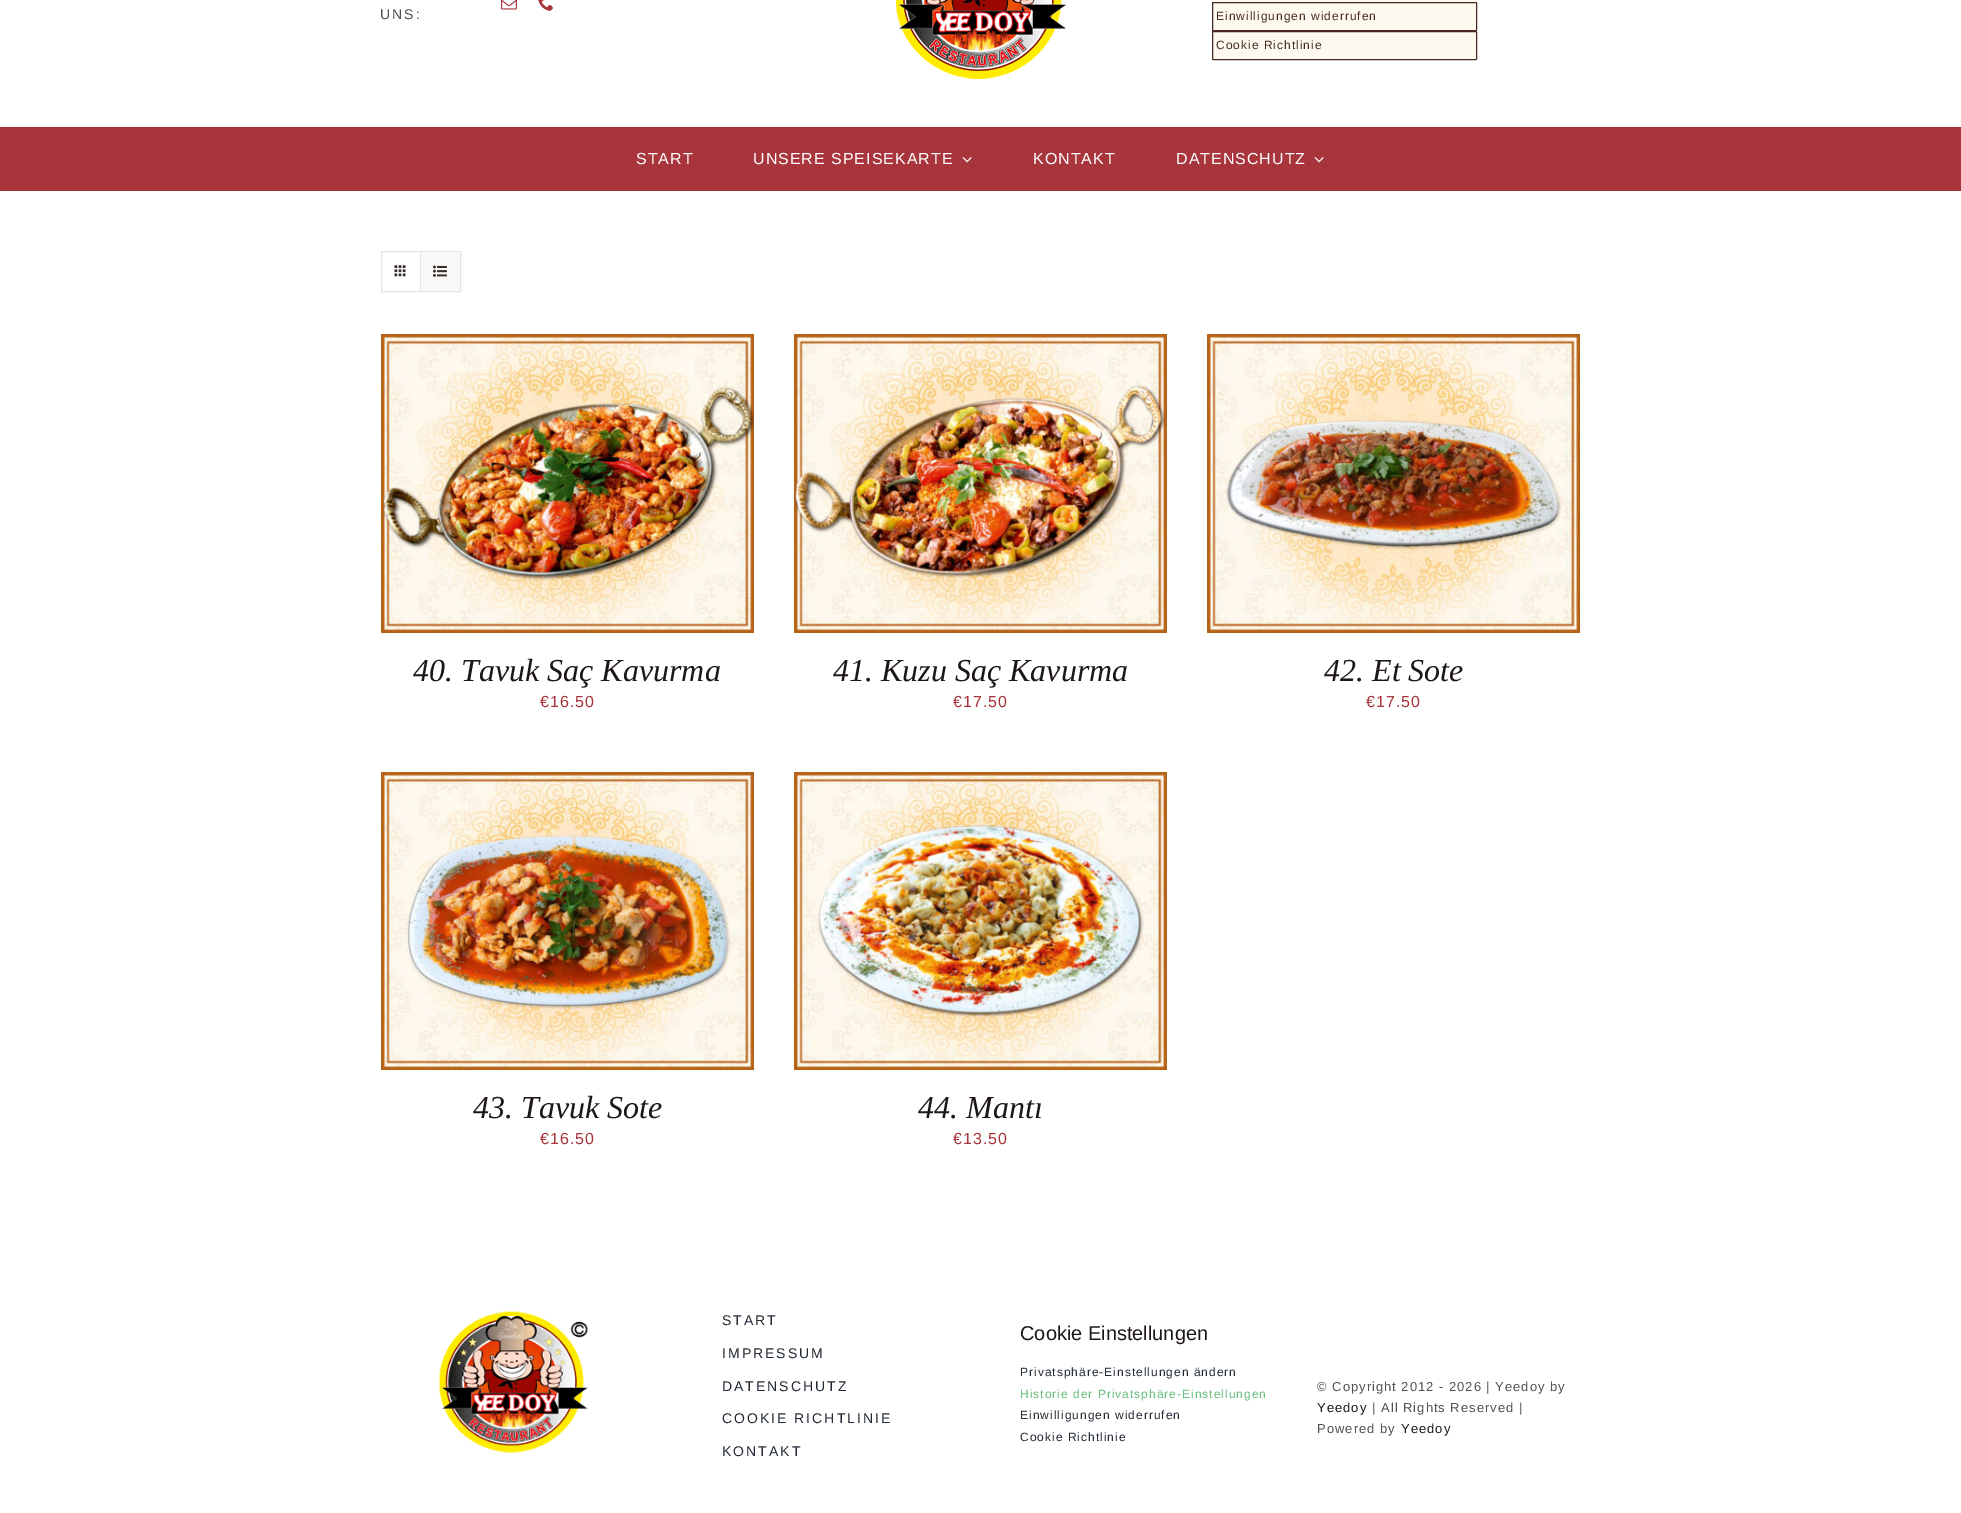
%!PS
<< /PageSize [1961 1513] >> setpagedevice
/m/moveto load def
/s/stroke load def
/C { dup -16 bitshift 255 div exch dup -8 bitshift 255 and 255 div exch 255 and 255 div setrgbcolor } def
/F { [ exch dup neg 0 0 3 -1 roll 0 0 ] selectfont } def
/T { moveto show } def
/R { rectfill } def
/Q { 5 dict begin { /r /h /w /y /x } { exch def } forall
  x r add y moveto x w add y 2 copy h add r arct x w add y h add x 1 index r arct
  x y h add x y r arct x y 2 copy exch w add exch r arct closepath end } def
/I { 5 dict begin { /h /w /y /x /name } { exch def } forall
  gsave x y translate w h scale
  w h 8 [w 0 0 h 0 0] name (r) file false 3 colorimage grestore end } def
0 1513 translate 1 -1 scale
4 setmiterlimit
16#FFFFFF C
0 0 1961 1513 R
(1.rgb) 501 0 16 10 I
(2.rgb) 538 0 15 11 I
/LiberationSans-Regular 14 F
16#544E4C C
380 19 m 2 0 (UNS:) ashow
(3.rgb) 896 0 170 79 I
16#FDF9EE C
1212 0 265 60 R
16#472922 C
1212.5 2.5 264 28 .5 Q s
/LiberationSans-Regular 12 F
1216 20 m 1 0 (Einwilligungen widerrufen) ashow
1212.5 31.5 264 28 .5 Q s
1216 49 m 1 0 (Cookie Richtlinie) ashow
16#A8343C C
0 127 1961 64 R
/LiberationSans-Regular 16 F
16#FFFFFF C
636 164 m 1 0 (START) ashow
753 164 m 1 0 (UNSERE SPEISEKARTE) ashow
(4.rgb) 962 157 10 6 I
1033 164 m 1 0 (KONTAKT) ashow
1176 164 m 1 0 (DATENSCHUTZ) ashow
(4.rgb) 1314 157 10 6 I
16#E7E1DF C
381.5 251.5 79 40 rectstroke
420 252 1 39 R
(5.rgb) 394 265 12 12 I
16#FAF9F7 C
421 252 39 39 R
(6.rgb) 433 265 14 12 I
(7.rgb) 381 334 373 299 I
/LiberationSerif-Italic 32 F
16#1D1816 C
(40. Tavuk Saç Kavurma) 413 681 T
/LiberationSans-Regular 16 F
16#A8343C C
540 707 m 1 0 (€16.50) ashow
(8.rgb) 794 334 373 299 I
/LiberationSerif-Italic 32 F
16#1D1816 C
(41. Kuzu Saç Kavurma) 833 681 T
/LiberationSans-Regular 16 F
16#A8343C C
953 707 m 1 0 (€17.50) ashow
(9.rgb) 1207 334 373 299 I
/LiberationSerif-Italic 32 F
16#1D1816 C
(42. Et Sote) 1324 681 T
/LiberationSans-Regular 16 F
16#A8343C C
1366 707 m 1 0 (€17.50) ashow
(10.rgb) 381 772 373 298 I
/LiberationSerif-Italic 32 F
16#1D1816 C
(43. Tavuk Sote) 473 1118 T
/LiberationSans-Regular 16 F
16#A8343C C
540 1144 m 1 0 (€16.50) ashow
(11.rgb) 794 772 373 298 I
/LiberationSerif-Italic 32 F
16#1D1816 C
(44. Mantı) 918 1118 T
/LiberationSans-Regular 16 F
16#A8343C C
953 1144 m 1 0 (€13.50) ashow
(12.rgb) 439 1311 149 142 I
/LiberationSans-Regular 14 F
16#212934 C
722 1325 m 2 0 (START) ashow
722 1358 m 2 0 (IMPRESSUM) ashow
722 1391 m 2 0 (DATENSCHUTZ) ashow
722 1423 m 2 0 (COOKIE RICHTLINIE) ashow
722 1456 m 2 0 (KONTAKT) ashow
/LiberationSans-Regular 20 F
16#1D1816 C
(Cookie Einstellungen) 1020 1340 T
/LiberationSans-Regular 12 F
16#212934 C
1020 1376 m 1 0 (Privatsphäre-Einstellungen ändern) ashow
16#65BC7B C
1020 1398 m 1 0 (Historie der Privatsphäre-Einstellungen) ashow
16#212934 C
1020 1419 m 1 0 (Einwilligungen widerrufen) ashow
1020 1441 m 1 0 (Cookie Richtlinie) ashow
/LiberationSans-Regular 13 F
16#544E4C C
1317 1391 m 1 0 (© Copyright 2012 - 2026 | Yeedoy by) ashow
16#1D1816 C
1317 1412 m 1 0 (Yeedoy) ashow
16#544E4C C
1372 1412 m 1 0 (| All Rights Reserved |) ashow
1317 1433 m 1 0 (Powered by) ashow
16#1D1816 C
1401 1433 m 1 0 (Yeedoy) ashow
showpage
